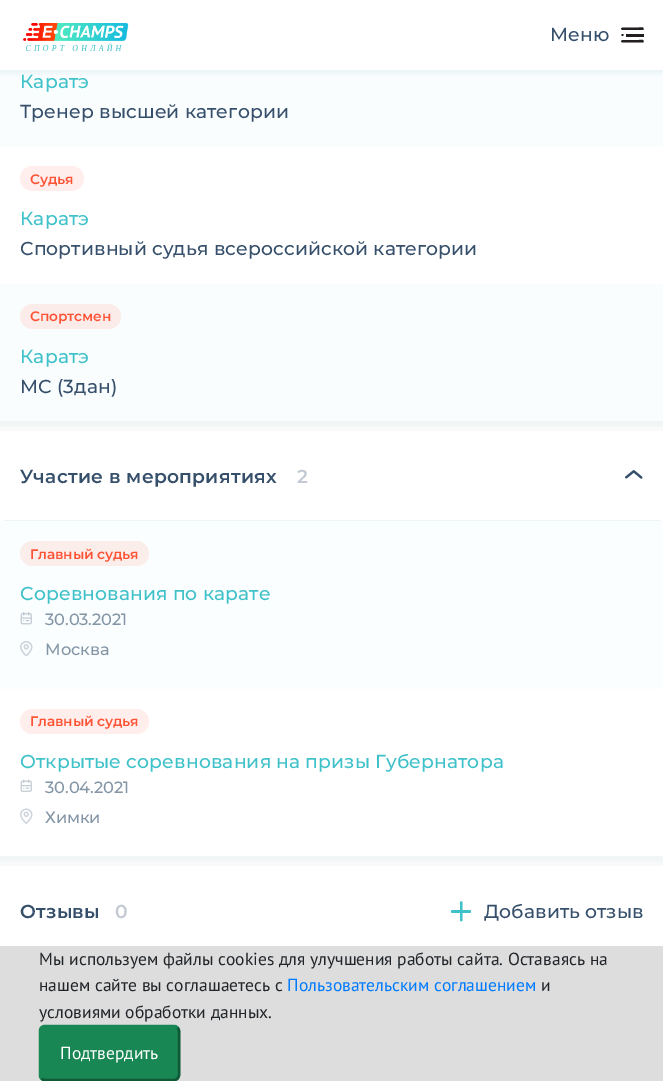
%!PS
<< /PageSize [663 1081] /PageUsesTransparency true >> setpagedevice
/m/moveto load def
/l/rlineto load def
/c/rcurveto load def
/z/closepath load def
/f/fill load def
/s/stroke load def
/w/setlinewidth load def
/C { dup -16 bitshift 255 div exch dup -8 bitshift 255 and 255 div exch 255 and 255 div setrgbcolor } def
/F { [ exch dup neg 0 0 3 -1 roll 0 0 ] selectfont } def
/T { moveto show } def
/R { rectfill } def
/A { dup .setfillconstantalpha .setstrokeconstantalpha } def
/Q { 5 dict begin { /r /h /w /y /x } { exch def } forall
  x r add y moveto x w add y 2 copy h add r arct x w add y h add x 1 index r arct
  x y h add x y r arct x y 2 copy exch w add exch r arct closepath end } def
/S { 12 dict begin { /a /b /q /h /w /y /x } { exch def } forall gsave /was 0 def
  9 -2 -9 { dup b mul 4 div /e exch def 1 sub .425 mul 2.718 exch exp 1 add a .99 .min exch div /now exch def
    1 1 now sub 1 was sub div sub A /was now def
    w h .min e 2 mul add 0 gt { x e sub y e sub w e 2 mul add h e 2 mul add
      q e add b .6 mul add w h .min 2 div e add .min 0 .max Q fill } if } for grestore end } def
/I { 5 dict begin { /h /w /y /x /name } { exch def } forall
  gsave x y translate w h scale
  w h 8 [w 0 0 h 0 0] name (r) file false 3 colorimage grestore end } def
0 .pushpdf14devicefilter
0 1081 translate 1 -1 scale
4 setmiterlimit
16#FAF9F9 C
0 0 663 1081 R
16#458E9D C
0 -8 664 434 0 2.5 .06 S
16#FAFDFE C
0 70 663 76 R
16#458E9D C
0 3 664 70 0 2.5 .1 S
16#FFFFFF C
0 0 663 70 R
(1.rgb) 23 23 106 28 I
/Montserrat-Medium 18.75 F
16#364F6B C
550 41 m .1 0 (Меню) ashow
16#231F20 C
626 34 18 3 R
642.5 42.5 m -20.5 0 l -.5 -.5 l -1.5 -2 2 -2 4.5 -2 c 13 0 l 1 0 4.5 -1 4.5 1 c .5 1 0 1.5 -1 1.5 c z 622.5 36 m -1.5 0 -1.5 -2 0 -2 c 1.5 0 1.5 2 0 2 c z 642.5 30 m -20.5 0 l -.5 -.5 l -1.5 -2 2 -2 4.5 -2 c 13 0 l 1 0 4.5 -1 4.5 1 c .5 1 0 1.5 -1 1.5 c z f
16#FFFFFF C
0 146 663 138 R
16#3FC1C9 C
20 88 m .1 0 (Каратэ) ashow
16#364F6B C
20 118 m .1 0 (Тренер высшей категории) ashow
16#FFEEEB C
20 166 64 25 12.5 Q f
/Montserrat-SemiBold 13.75 F
16#FF5335 C
30 184 m -.1 0 (Судья) ashow
/Montserrat-Medium 18.75 F
16#3FC1C9 C
20 225 m .1 0 (Каратэ) ashow
16#364F6B C
20 255 m .1 0 (Спортивный судья всероссийской категории) ashow
16#FAFDFE C
0 284 663 137 R
16#FBECEA C
20 304 101 25 12.5 Q f
/Montserrat-SemiBold 13.75 F
16#FF5335 C
30 321 m -.1 0 (Спортсмен) ashow
/Montserrat-Medium 18.75 F
16#3FC1C9 C
20 363 m .1 0 (Каратэ) ashow
16#364F6B C
20 393 m .1 0 (МС \(3дан\)) ashow
16#458E9D C
0 436 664 425 0 2.5 .06 S
16#FFFFFF C
0 431 663 425 R
16#ECF4F5 C
4 520 657 1 R
/Montserrat-SemiBold 18.75 F
16#364F6B C
20 483 m .25 0 (Участие в мероприятиях) ashow
16#C3CAD3 C
297 483 m .25 0 (2) ashow
(2.rgb) 625 470 18 9 I
16#FAFEFE C
0 521 663 168 R
16#FBEDEA C
20 541 129 25 12.5 Q f
/Montserrat-SemiBold 13.75 F
16#FF5335 C
30 559 m -.1 0 (Главный судья) ashow
/Montserrat-Medium 18.75 F
16#3FC1C9 C
20 600 m .1 0 (Соревнования по карате) ashow
(3.rgb) 20 612 12 13 I
/Montserrat-Medium 16.25 F
16#8495A6 C
45 625 m -.1 0 (30.03.2021) ashow
(4.rgb) 20 641 13 15 I
45 655 m -.1 0 (Москва) ashow
16#FFEEEB C
20 709 129 25 12.5 Q f
/Montserrat-SemiBold 13.75 F
16#FF5335 C
30 726 m -.1 0 (Главный судья) ashow
/Montserrat-Medium 18.75 F
16#3FC1C9 C
20 768 m .1 0 (Открытые соревнования на призы Губернатора) ashow
(5.rgb) 20 779 12 13 I
/Montserrat-Medium 16.25 F
16#8495A6 C
45 793 m -.1 0 (30.04.2021) ashow
(6.rgb) 20 808 13 16 I
45 823 m -.1 0 (Химки) ashow
16#FFFFFF C
0 866 663 80 R
/Montserrat-SemiBold 18.75 F
16#364F6B C
20 918 m .25 0 (Отзывы) ashow
16#C3CAD3 C
115 918 m .25 0 (0) ashow
16#3FC1C9 C
462.5 902.5 m 0 18 l -.5 1 -2 1 -2.5 0 c 0 -18 l 0 -1.5 2.5 -1.5 2.5 0 c z f
/Montserrat-Medium 18.75 F
16#364F6B C
484 918 m .1 0 (Добавить отзыв) ashow
16#3FC1C9 C
451 910 20 3 1.5 Q f
16#DDDDDD C
0 946 663 135 R
/PTSans-Regular 17.5 F
16#212529 C
(Мы используем файлы cookies для улучшения работы сайта. Оставаясь на) 39 965 T
(нашем сайте вы соглашаетесь с) 39 991 T
16#007BFF C
(Пользовательским соглашением) 287 991 T
16#212529 C
(и) 541 991 T
(условиями обработки данных.) 39 1018 T
16#198754 C
39 1025 141 56 6 Q f
16#115A38 C
2.5 w
177.5 1027.5 m .5 1 1.5 2.5 1.5 3.5 c 0 44 l 0 1.5 -1 2.5 -1.5 3.5 c -1 1 -2.5 1.5 -3.5 1.5 c -129 0 l -1.5 0 -2.5 -.5 -3.5 -1.5 c s
16#198754 C
41.5 1078.5 m -1 -1 -1.5 -2 -1.5 -3.5 c 0 -44 l 0 -1 .5 -2.5 1.5 -3.5 c 1 -.5 2 -1.5 3.5 -1.5 c 129 0 l 1 0 2.5 1 3.5 1.5 c s
16#FFFFFF C
(Подтвердить) 60 1059 T
.poppdf14devicefilter showpage
